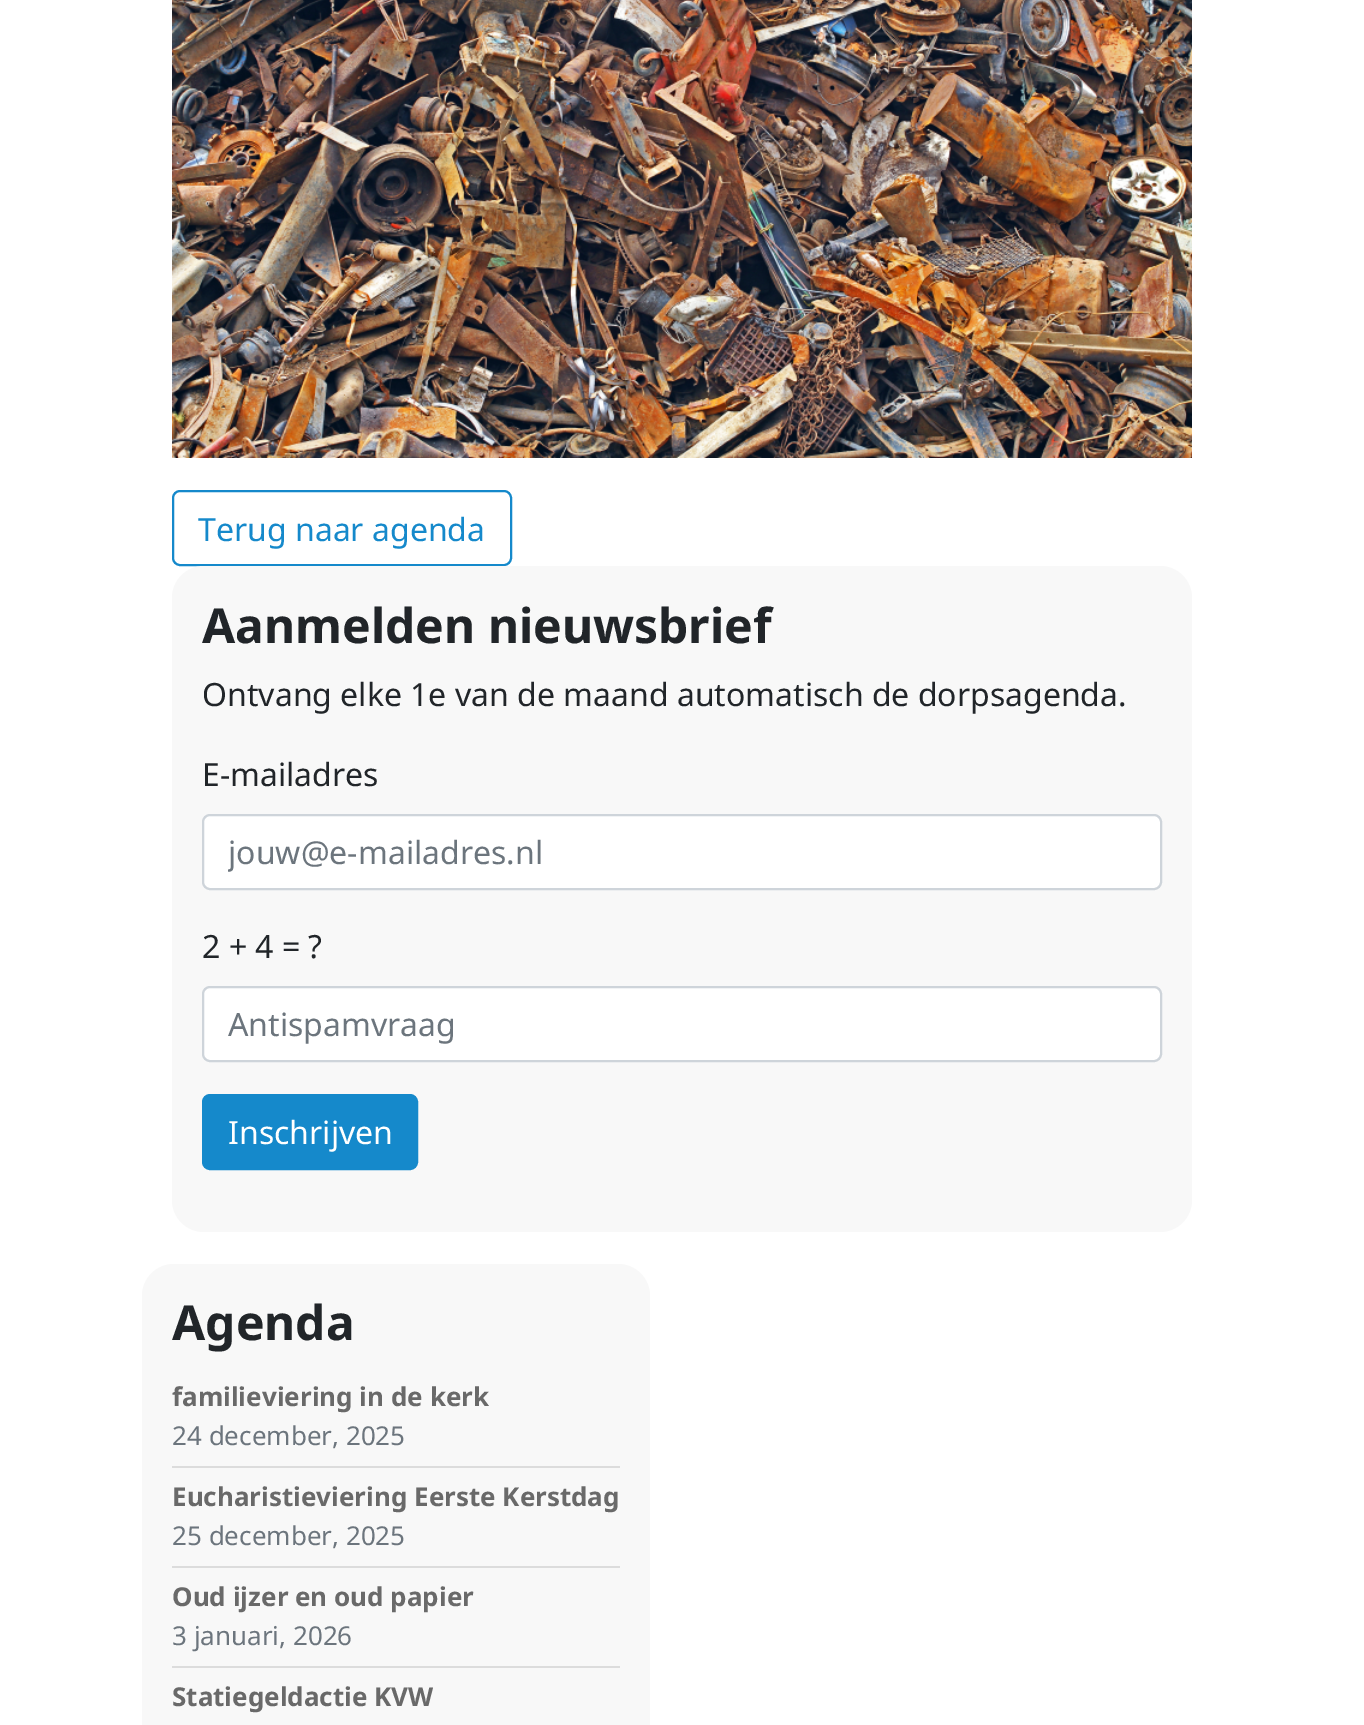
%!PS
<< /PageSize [1364 1725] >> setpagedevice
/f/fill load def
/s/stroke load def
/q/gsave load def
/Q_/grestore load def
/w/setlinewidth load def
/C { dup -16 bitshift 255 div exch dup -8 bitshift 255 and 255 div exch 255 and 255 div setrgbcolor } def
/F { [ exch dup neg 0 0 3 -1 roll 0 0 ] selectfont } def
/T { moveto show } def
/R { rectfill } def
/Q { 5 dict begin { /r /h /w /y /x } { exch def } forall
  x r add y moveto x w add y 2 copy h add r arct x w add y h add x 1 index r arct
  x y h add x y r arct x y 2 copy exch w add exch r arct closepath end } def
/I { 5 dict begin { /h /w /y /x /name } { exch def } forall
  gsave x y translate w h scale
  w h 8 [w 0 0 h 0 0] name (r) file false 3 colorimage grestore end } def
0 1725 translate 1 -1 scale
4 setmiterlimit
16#FFFFFF C
0 0 1364 1725 R
(1.rgb) 172 0 1020 458 I
16#1589CB C
2 w
173 491 338 74 7 Q s
/NotoSans-Regular 32 F
(Terug naar agenda) 198 541 T
16#F8F8F8 C
172 566 1020 666 32 Q f
/NotoSans-Bold 48 F
16#212529 C
(Aanmelden nieuwsbrief) 202 643 T
/NotoSans-Regular 32 F
(Ontvang elke 1e van de maand automatisch de dorpsagenda.) 202 706 T
(E-mailadres) 202 786 T
16#FFFFFF C
203 815 958 74 7 Q q f Q_
16#CED4DA C
s
q
228 830 908 44 rectclip
16#6C757D C
(jouw@e-mailadres.nl) 228 864 T
Q_
16#212529 C
(2 + 4 = ?) 202 958 T
16#FFFFFF C
203 987 958 74 7 Q q f Q_
16#CED4DA C
s
16#6C757D C
(Antispamvraag) 228 1036 T
16#1589CB C
203 1095 214 74 7 Q q f Q_
s
16#FFFFFF C
(Inschrijven) 228 1144 T
16#F8F8F8 C
142 1264 508 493 32 Q f
/NotoSans-Bold 48 F
16#212529 C
(Agenda) 172 1340 T
16#DCDCDC C
172 1466 448 2 R
/NotoSans-Bold 26 F
16#696969 C
(familieviering in de kerk) 172 1406 T
/NotoSans-Regular 26 F
16#6C757D C
(24 december, 2025) 172 1445 T
16#DCDCDC C
172 1566 448 2 R
/NotoSans-Bold 26 F
16#696969 C
(Eucharistieviering Eerste Kerstdag) 172 1506 T
/NotoSans-Regular 26 F
16#6C757D C
(25 december, 2025) 172 1545 T
16#DCDCDC C
172 1666 448 2 R
/NotoSans-Bold 26 F
16#696969 C
(Oud ijzer en oud papier) 172 1606 T
/NotoSans-Regular 26 F
16#6C757D C
(3 januari, 2026) 172 1645 T
/NotoSans-Bold 26 F
16#696969 C
(Statiegeldactie KVW) 172 1706 T
showpage
